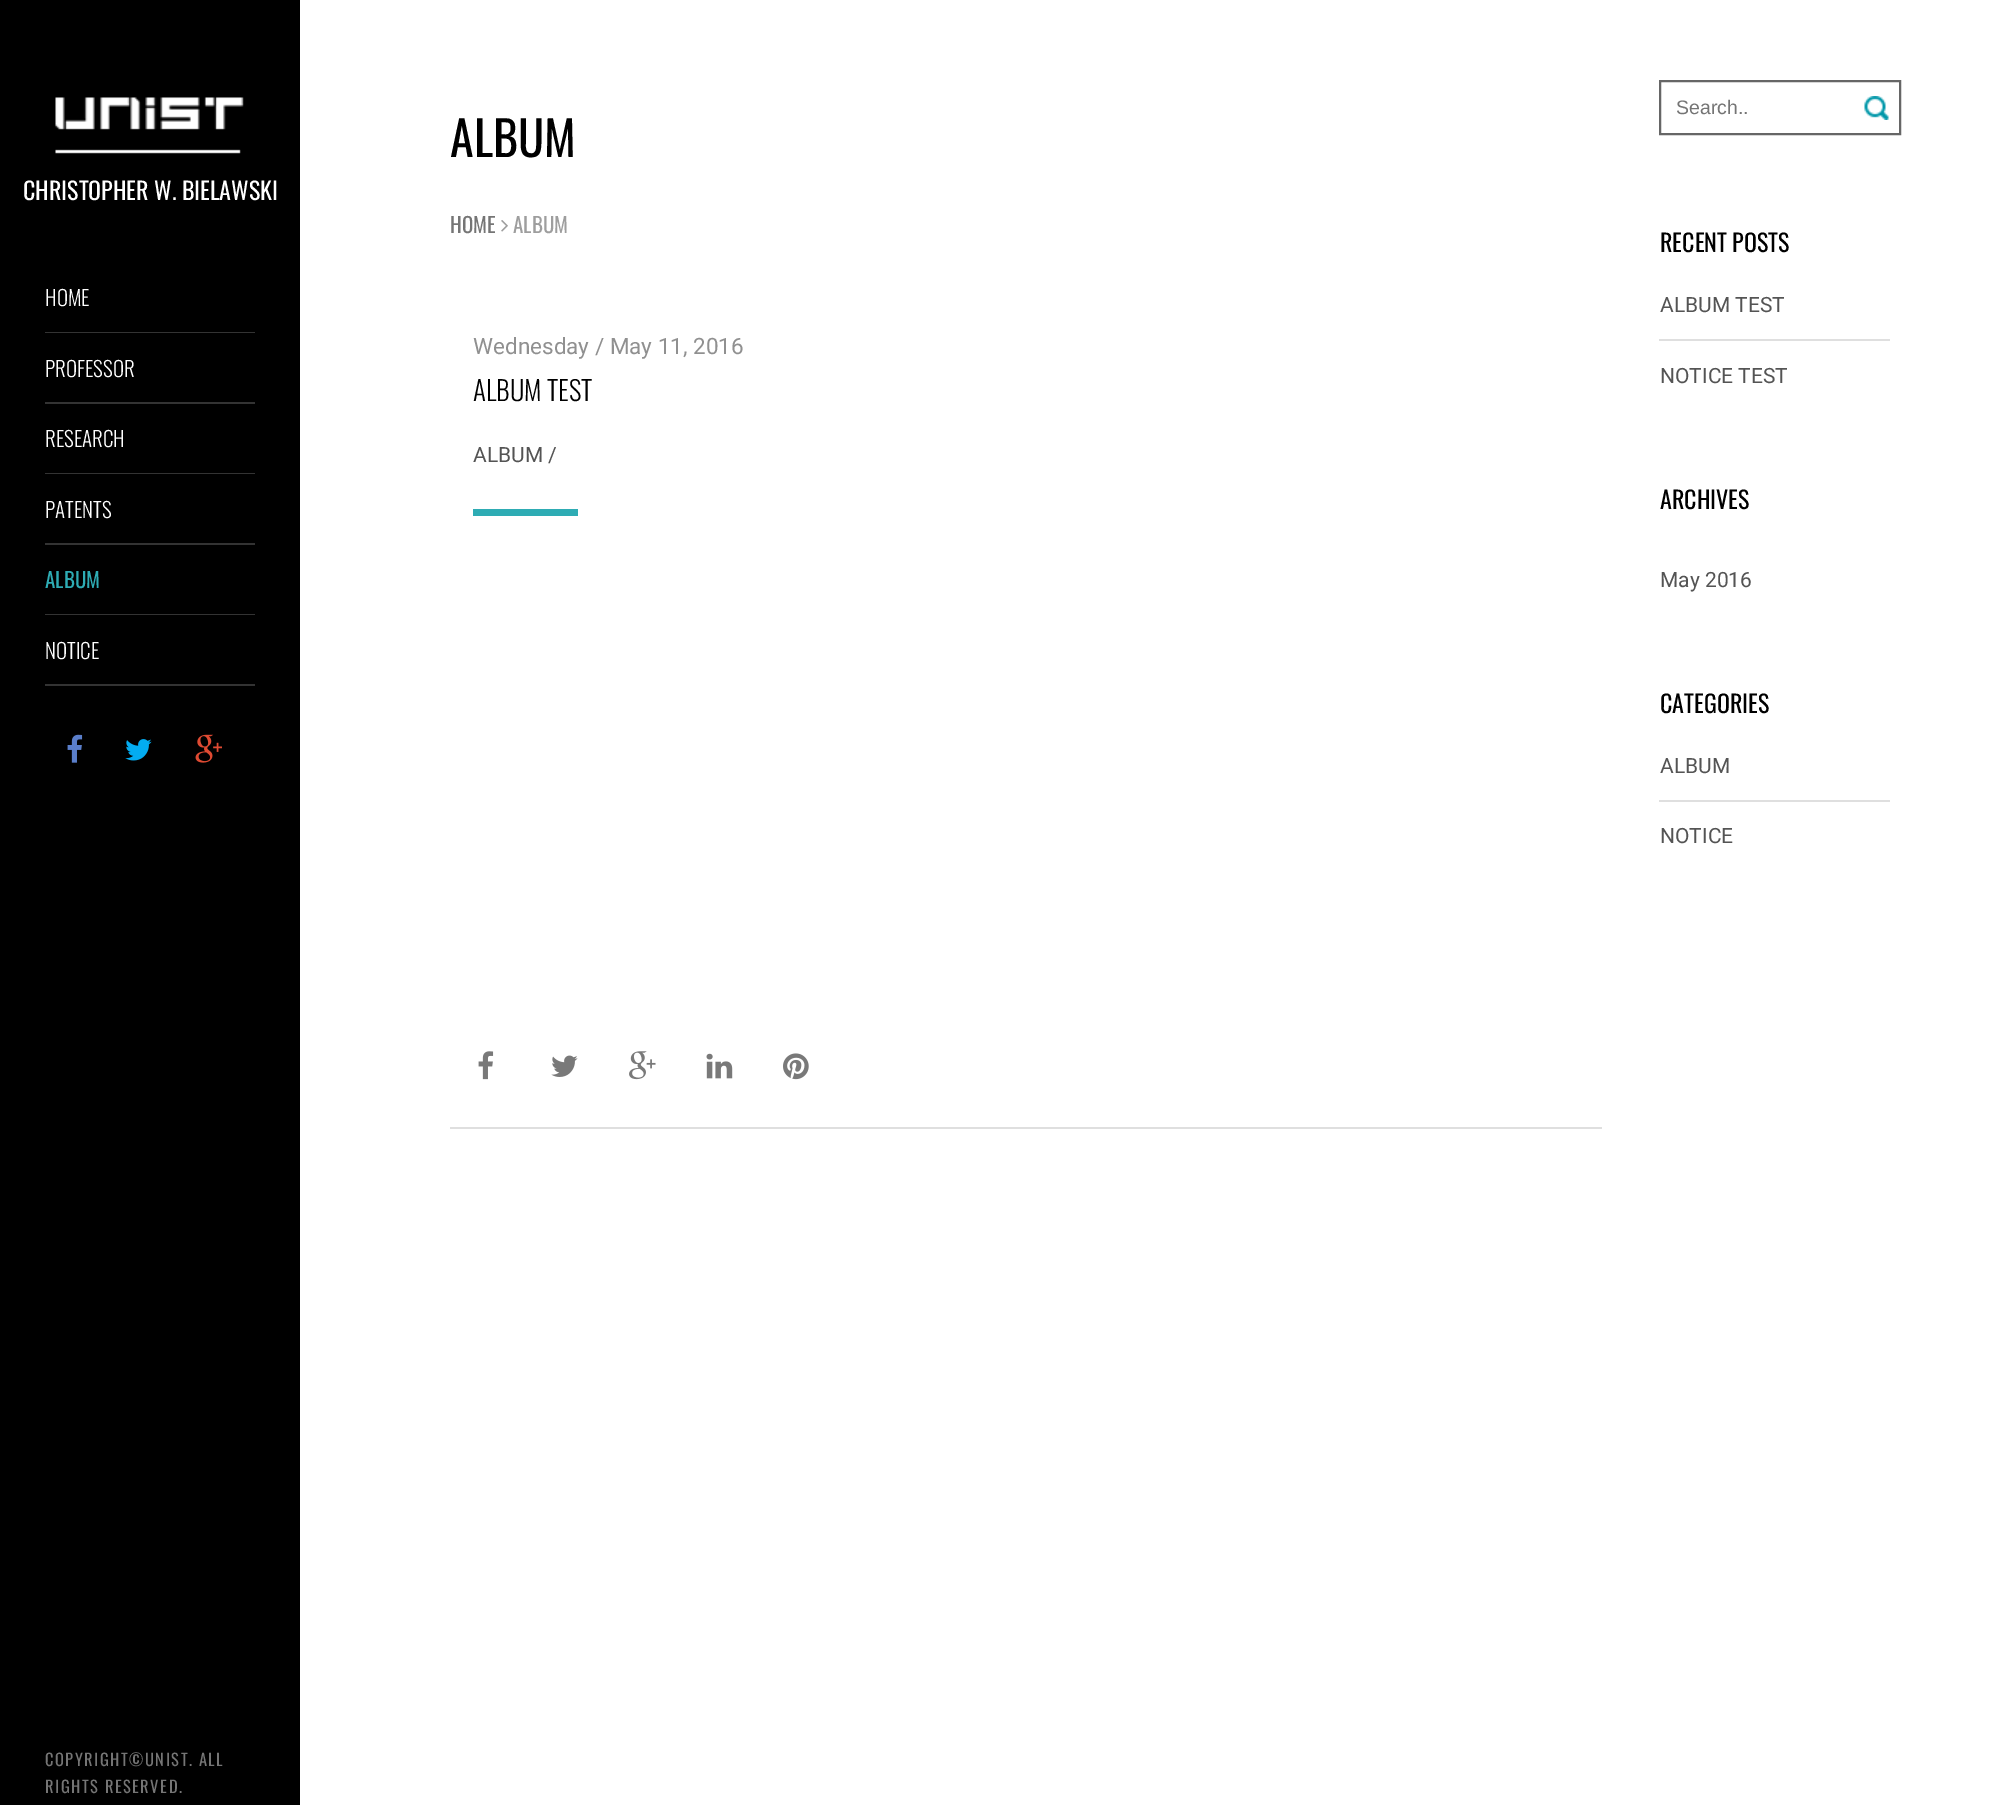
%!PS
<< /PageSize [1995 1805] >> setpagedevice
/m/moveto load def
/w/setlinewidth load def
/C { dup -16 bitshift 255 div exch dup -8 bitshift 255 and 255 div exch 255 and 255 div setrgbcolor } def
/F { [ exch dup neg 0 0 3 -1 roll 0 0 ] selectfont } def
/T { moveto show } def
/R { rectfill } def
/I { 5 dict begin { /h /w /y /x /name } { exch def } forall
  gsave x y translate w h scale
  w h 8 [w 0 0 h 0 0] name (r) file false 3 colorimage grestore end } def
0 1805 translate 1 -1 scale
4 setmiterlimit
16#FFFFFF C
0 0 1995 1805 R
16#000000 C
0 0 300 1805 R
(1.rgb) 55 97 189 57 I
/Oswald-Regular 24 F
16#FFFFFF C
(CHRISTOPHER W. BIELAWSKI) 23 200 T
16#333333 C
45 332 210 1 R
/Oswald-Light 21 F
16#FFFFFF C
(HOME) 45 306 T
16#333333 C
45 402 210 2 R
16#FFFFFF C
(PROFESSOR) 45 377 T
16#333333 C
45 473 210 1 R
16#FFFFFF C
(RESEARCH) 45 447 T
16#333333 C
45 543 210 2 R
16#FFFFFF C
(PATENTS) 45 518 T
16#333333 C
45 614 210 1 R
/Oswald-Regular 21 F
16#2EACB4 C
(ALBUM) 45 588 T
16#333333 C
45 684 210 2 R
/Oswald-Light 21 F
16#FFFFFF C
(NOTICE) 45 659 T
(2.rgb) 67 734 16 29 I
(3.rgb) 125 739 27 22 I
(4.rgb) 195 734 27 29 I
/Oswald-Regular 16.5 F
16#757575 C
45 1766 m 1.5 0 (COPYRIGHT©UNIST. ALL) ashow
45 1793 m 1.5 0 (RIGHTS RESERVED.) ashow
/Oswald-Regular 48 F
16#000000 C
(ALBUM) 450 157 T
/Oswald-Regular 21 F
16#757575 C
(HOME) 450 233 T
(5.rgb) 501 220 7 12 I
16#9E9E9E C
(ALBUM) 513 233 T
16#DFDFDF C
450 1127 1152 2 R
/Roboto-Regular 22.5 F
16#909090 C
(Wednesday / May 11, 2016) 473 354 T
/Oswald-Light 27 F
16#000000 C
(ALBUM TEST) 473 401 T
/Roboto-Regular 21 F
16#545454 C
(ALBUM /) 473 462 T
16#2EACB4 C
473 509 105 7 R
(6.rgb) 478 1051 16 29 I
(7.rgb) 551 1055 27 22 I
(8.rgb) 629 1051 27 29 I
(9.rgb) 706 1053 27 26 I
(10.rgb) 783 1053 26 27 I
(11.rgb) 1864 96 25 24 I
16#666666 C
2 w
1660 81 240 53 rectstroke
/LiberationSans-Regular 19.5 F
16#757575 C
(Search..) 1676 114 T
/Oswald-Regular 24 F
16#000000 C
(RECENT POSTS) 1660 252 T
16#DFDFDF C
1659 339 231 2 R
/Roboto-Regular 21 F
16#545454 C
(ALBUM TEST) 1660 312 T
(NOTICE TEST) 1660 383 T
/Oswald-Regular 24 F
16#000000 C
(ARCHIVES) 1660 509 T
/Roboto-Regular 21 F
16#545454 C
(May 2016) 1660 587 T
/Oswald-Regular 24 F
16#000000 C
(CATEGORIES) 1660 713 T
16#DFDFDF C
1659 800 231 2 R
/Roboto-Regular 21 F
16#545454 C
(ALBUM) 1660 773 T
(NOTICE) 1660 843 T
showpage
